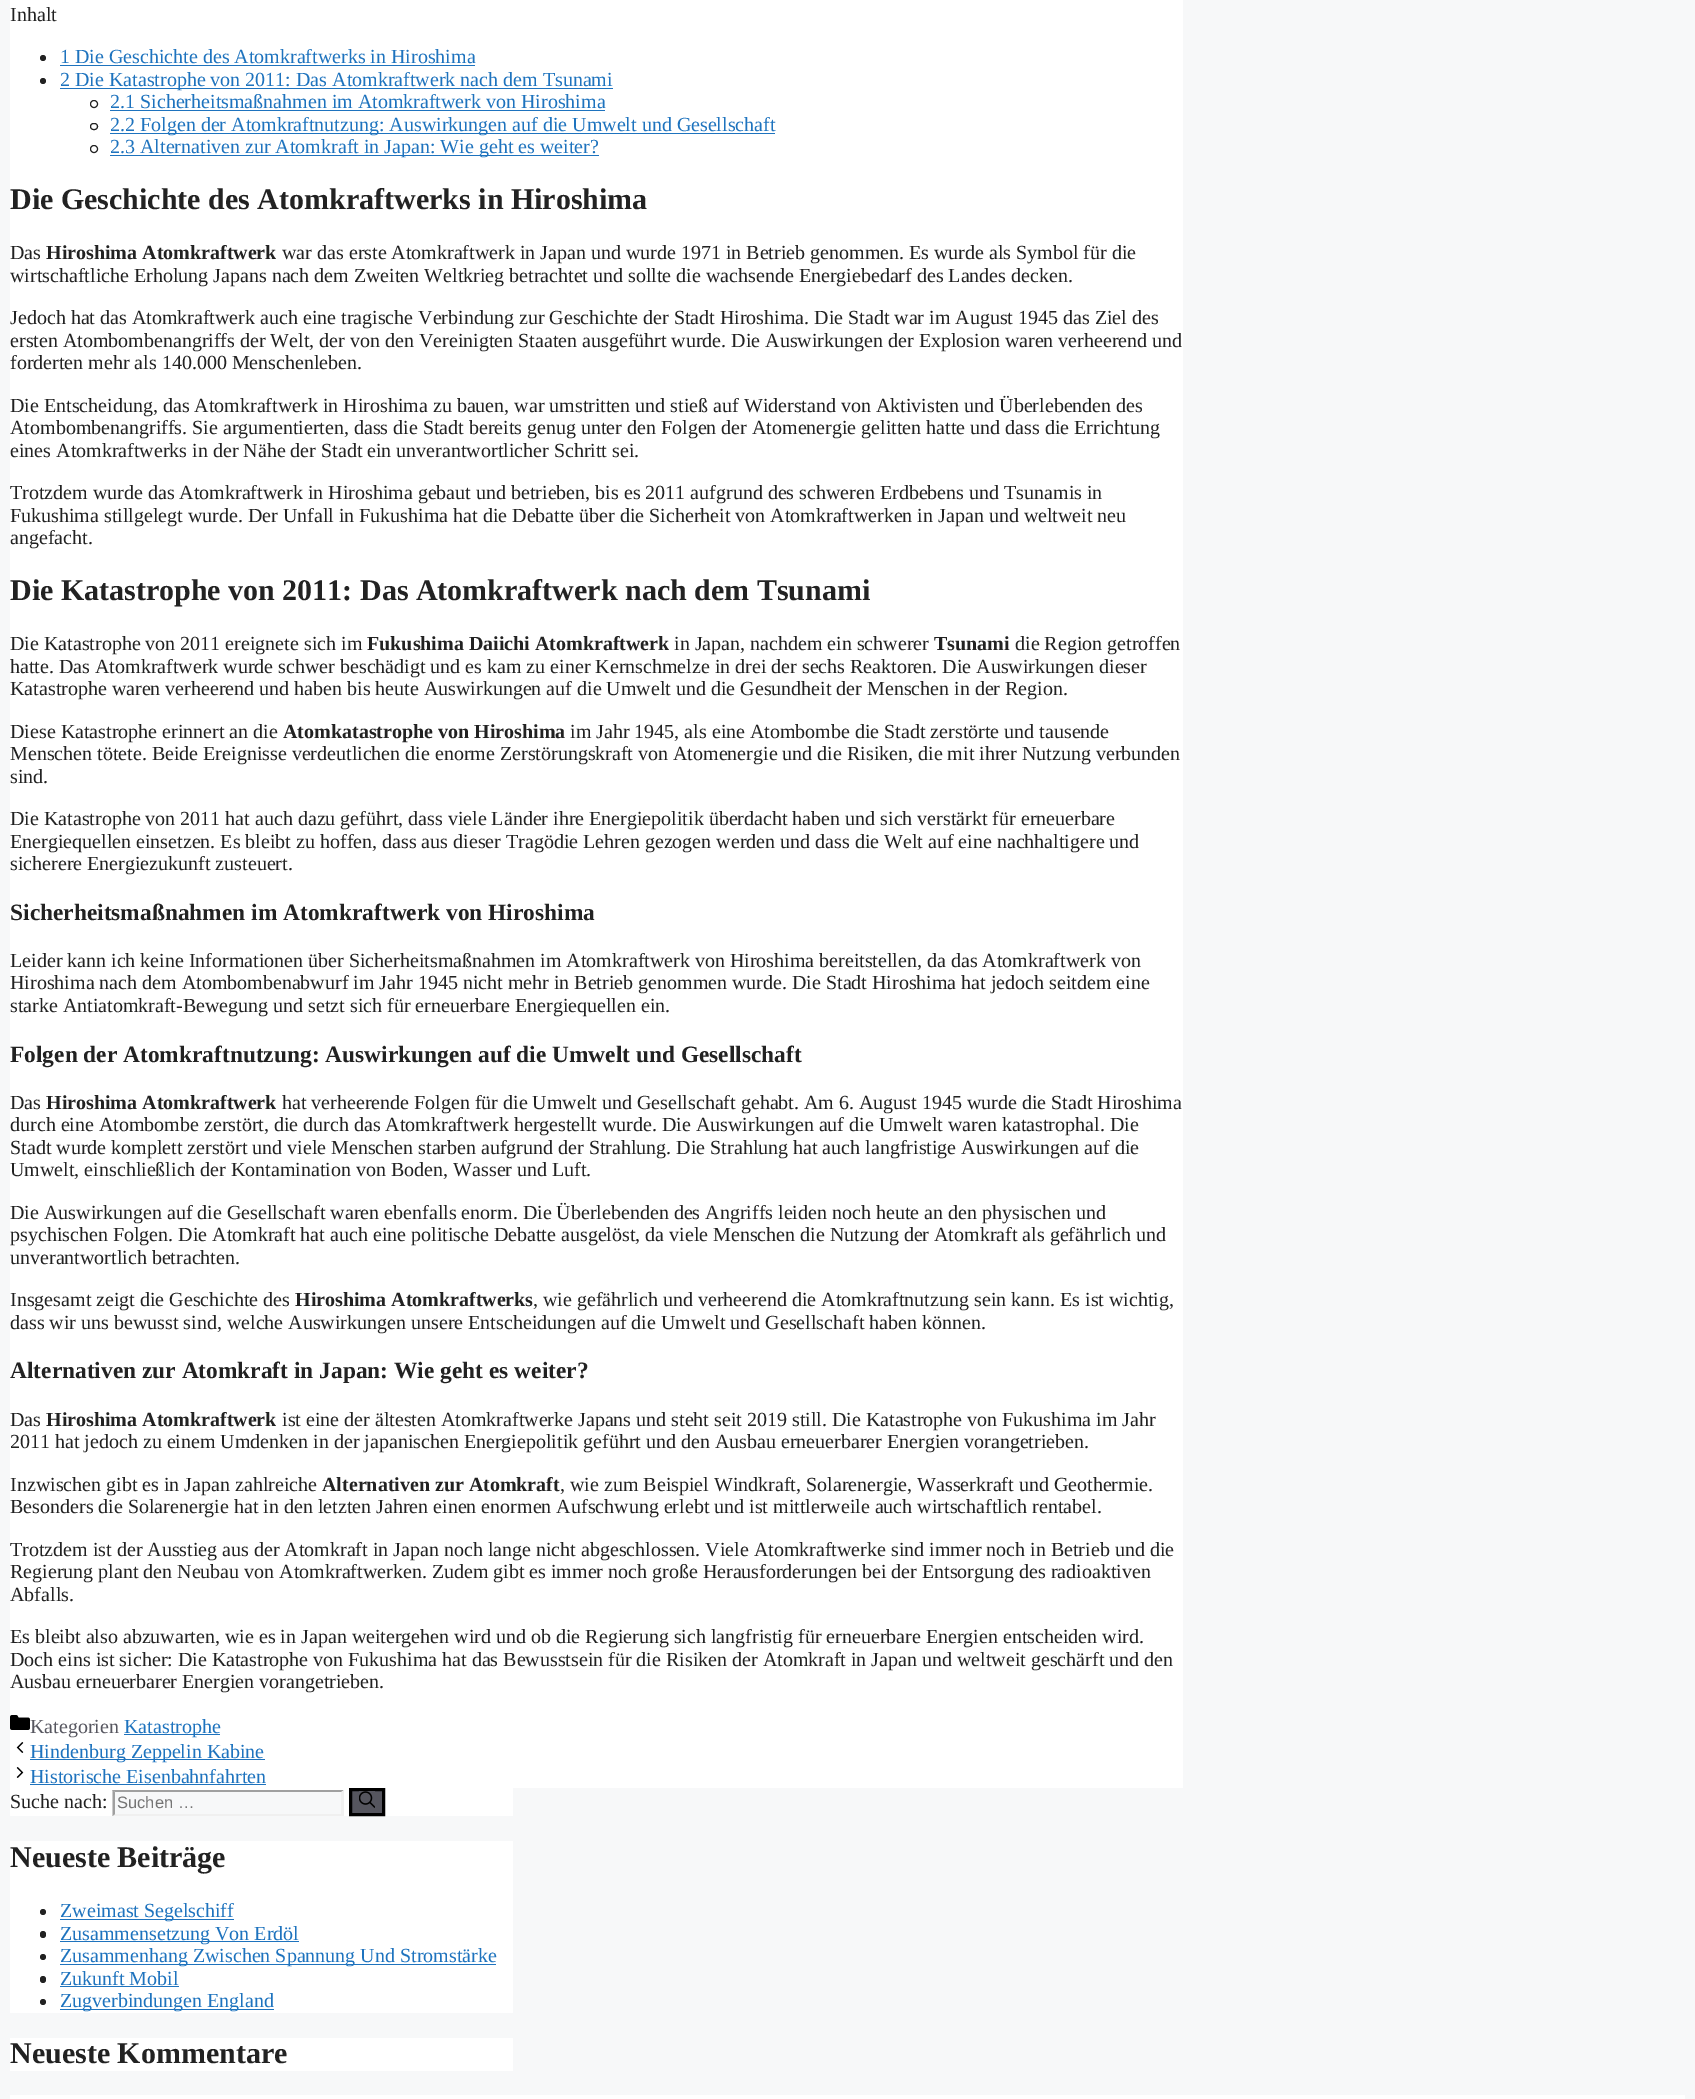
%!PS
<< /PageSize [1695 2099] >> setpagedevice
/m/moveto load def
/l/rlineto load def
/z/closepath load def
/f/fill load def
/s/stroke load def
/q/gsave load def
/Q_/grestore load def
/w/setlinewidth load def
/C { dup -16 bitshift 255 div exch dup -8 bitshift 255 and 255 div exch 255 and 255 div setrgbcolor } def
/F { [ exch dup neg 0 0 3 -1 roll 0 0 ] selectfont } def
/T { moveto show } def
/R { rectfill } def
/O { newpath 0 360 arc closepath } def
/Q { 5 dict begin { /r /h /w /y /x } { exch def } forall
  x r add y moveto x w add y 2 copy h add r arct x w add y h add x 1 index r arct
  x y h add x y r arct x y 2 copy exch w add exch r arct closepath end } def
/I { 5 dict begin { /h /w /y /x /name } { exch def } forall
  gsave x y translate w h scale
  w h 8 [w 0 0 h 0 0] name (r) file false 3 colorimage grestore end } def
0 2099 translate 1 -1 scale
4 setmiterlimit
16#F7F8F9 C
0 0 1695 2099 R
16#FFFFFF C
10 0 1173 1788 R
/LiberationSerif-Regular 20 F
16#222222 C
(Inhalt) 10 21 T
43 58 3 O f
16#1E73BE C
(1 Die Geschichte des Atomkraftwerks in Hiroshima) 60 63 T
60 65 415 1 R
16#222222 C
43 81 3 O f
16#1E73BE C
60 88 553 1 R
(2 Die Katastrophe von 2011: Das Atomkraftwerk nach dem Tsunami) 60 86 T
16#222222 C
94 104 3.5 O s
16#1E73BE C
(2.1 Sicherheitsmaßnahmen im Atomkraftwerk von Hiroshima) 110 108 T
110 110 495 1 R
16#222222 C
90.5 123.5 7 6 3 Q s
16#1E73BE C
110 133 665 1 R
(2.2 Folgen der Atomkraftnutzung: Auswirkungen auf die Umwelt und Gesellschaft) 110 131 T
16#222222 C
94 149 3.5 O s
16#1E73BE C
110 155 489 1 R
(2.3 Alternativen zur Atomkraft in Japan: Wie geht es weiter?) 110 153 T
/LiberationSerif-Bold 30 F
16#222222 C
(Die Geschichte des Atomkraftwerks in Hiroshima) 10 209 T
/LiberationSerif-Regular 20 F
(Das) 10 259 T
/LiberationSerif-Bold 20 F
(Hiroshima Atomkraftwerk) 46 259 T
/LiberationSerif-Regular 20 F
(war das erste Atomkraftwerk in Japan und wurde 1971 in Betrieb genommen. Es wurde als Symbol für die) 282 259 T
(wirtschaftliche Erholung Japans nach dem Zweiten Weltkrieg betrachtet und sollte die wachsende Energiebedarf des Landes decken.) 10 282 T
(Jedoch hat das Atomkraftwerk auch eine tragische Verbindung zur Geschichte der Stadt Hiroshima. Die Stadt war im August 1945 das Ziel des) 10 324 T
(ersten Atombombenangriffs der Welt, der von den Vereinigten Staaten ausgeführt wurde. Die Auswirkungen der Explosion waren verheerend und) 10 347 T
(forderten mehr als 140.000 Menschenleben.) 10 369 T
(Die Entscheidung, das Atomkraftwerk in Hiroshima zu bauen, war umstritten und stieß auf Widerstand von Aktivisten und Überlebenden des) 10 412 T
(Atombombenangriffs. Sie argumentierten, dass die Stadt bereits genug unter den Folgen der Atomenergie gelitten hatte und dass die Errichtung) 10 434 T
(eines Atomkraftwerks in der Nähe der Stadt ein unverantwortlicher Schritt sei.) 10 457 T
(Trotzdem wurde das Atomkraftwerk in Hiroshima gebaut und betrieben, bis es 2011 aufgrund des schweren Erdbebens und Tsunamis in) 10 499 T
(Fukushima stillgelegt wurde. Der Unfall in Fukushima hat die Debatte über die Sicherheit von Atomkraftwerken in Japan und weltweit neu) 10 522 T
(angefacht.) 10 544 T
/LiberationSerif-Bold 30 F
(Die Katastrophe von 2011: Das Atomkraftwerk nach dem Tsunami) 10 600 T
/LiberationSerif-Regular 20 F
(Die Katastrophe von 2011 ereignete sich im) 10 650 T
/LiberationSerif-Bold 20 F
(Fukushima Daiichi Atomkraftwerk) 367 650 T
/LiberationSerif-Regular 20 F
(in Japan, nachdem ein schwerer) 674 650 T
/LiberationSerif-Bold 20 F
(Tsunami) 934 650 T
/LiberationSerif-Regular 20 F
(die Region getroffen) 1015 650 T
(hatte. Das Atomkraftwerk wurde schwer beschädigt und es kam zu einer Kernschmelze in drei der sechs Reaktoren. Die Auswirkungen dieser) 10 673 T
(Katastrophe waren verheerend und haben bis heute Auswirkungen auf die Umwelt und die Gesundheit der Menschen in der Region.) 10 695 T
(Diese Katastrophe erinnert an die) 10 738 T
/LiberationSerif-Bold 20 F
(Atomkatastrophe von Hiroshima) 283 738 T
/LiberationSerif-Regular 20 F
(im Jahr 1945, als eine Atombombe die Stadt zerstörte und tausende) 570 738 T
(Menschen tötete. Beide Ereignisse verdeutlichen die enorme Zerstörungskraft von Atomenergie und die Risiken, die mit ihrer Nutzung verbunden) 10 760 T
(sind.) 10 783 T
(Die Katastrophe von 2011 hat auch dazu geführt, dass viele Länder ihre Energiepolitik überdacht haben und sich verstärkt für erneuerbare) 10 825 T
(Energiequellen einsetzen. Es bleibt zu hoffen, dass aus dieser Tragödie Lehren gezogen werden und dass die Welt auf eine nachhaltigere und) 10 848 T
(sicherere Energiezukunft zusteuert.) 10 870 T
/LiberationSerif-Bold 23.4 F
(Sicherheitsmaßnahmen im Atomkraftwerk von Hiroshima) 10 920 T
/LiberationSerif-Regular 20 F
(Leider kann ich keine Informationen über Sicherheitsmaßnahmen im Atomkraftwerk von Hiroshima bereitstellen, da das Atomkraftwerk von) 10 967 T
(Hiroshima nach dem Atombombenabwurf im Jahr 1945 nicht mehr in Betrieb genommen wurde. Die Stadt Hiroshima hat jedoch seitdem eine) 10 989 T
(starke Antiatomkraft-Bewegung und setzt sich für erneuerbare Energiequellen ein.) 10 1012 T
/LiberationSerif-Bold 23.4 F
(Folgen der Atomkraftnutzung: Auswirkungen auf die Umwelt und Gesellschaft) 10 1062 T
/LiberationSerif-Regular 20 F
(Das) 10 1109 T
/LiberationSerif-Bold 20 F
(Hiroshima Atomkraftwerk) 46 1109 T
/LiberationSerif-Regular 20 F
(hat verheerende Folgen für die Umwelt und Gesellschaft gehabt. Am 6. August 1945 wurde die Stadt Hiroshima) 282 1109 T
(durch eine Atombombe zerstört, die durch das Atomkraftwerk hergestellt wurde. Die Auswirkungen auf die Umwelt waren katastrophal. Die) 10 1131 T
(Stadt wurde komplett zerstört und viele Menschen starben aufgrund der Strahlung. Die Strahlung hat auch langfristige Auswirkungen auf die) 10 1154 T
(Umwelt, einschließlich der Kontamination von Boden, Wasser und Luft.) 10 1176 T
(Die Auswirkungen auf die Gesellschaft waren ebenfalls enorm. Die Überlebenden des Angriffs leiden noch heute an den physischen und) 10 1219 T
(psychischen Folgen. Die Atomkraft hat auch eine politische Debatte ausgelöst, da viele Menschen die Nutzung der Atomkraft als gefährlich und) 10 1241 T
(unverantwortlich betrachten.) 10 1264 T
(Insgesamt zeigt die Geschichte des) 10 1306 T
/LiberationSerif-Bold 20 F
(Hiroshima Atomkraftwerks) 295 1306 T
/LiberationSerif-Regular 20 F
(, wie gefährlich und verheerend die Atomkraftnutzung sein kann. Es ist wichtig,) 533 1306 T
(dass wir uns bewusst sind, welche Auswirkungen unsere Entscheidungen auf die Umwelt und Gesellschaft haben können.) 10 1329 T
/LiberationSerif-Bold 23.4 F
(Alternativen zur Atomkraft in Japan: Wie geht es weiter?) 10 1378 T
/LiberationSerif-Regular 20 F
(Das) 10 1426 T
/LiberationSerif-Bold 20 F
(Hiroshima Atomkraftwerk) 46 1426 T
/LiberationSerif-Regular 20 F
(ist eine der ältesten Atomkraftwerke Japans und steht seit 2019 still. Die Katastrophe von Fukushima im Jahr) 282 1426 T
(2011 hat jedoch zu einem Umdenken in der japanischen Energiepolitik geführt und den Ausbau erneuerbarer Energien vorangetrieben.) 10 1448 T
(Inzwischen gibt es in Japan zahlreiche) 10 1491 T
/LiberationSerif-Bold 20 F
(Alternativen zur Atomkraft) 322 1491 T
/LiberationSerif-Regular 20 F
(, wie zum Beispiel Windkraft, Solarenergie, Wasserkraft und Geothermie.) 560 1491 T
(Besonders die Solarenergie hat in den letzten Jahren einen enormen Aufschwung erlebt und ist mittlerweile auch wirtschaftlich rentabel.) 10 1513 T
(Trotzdem ist der Ausstieg aus der Atomkraft in Japan noch lange nicht abgeschlossen. Viele Atomkraftwerke sind immer noch in Betrieb und die) 10 1556 T
(Regierung plant den Neubau von Atomkraftwerken. Zudem gibt es immer noch große Herausforderungen bei der Entsorgung des radioaktiven) 10 1578 T
(Abfalls.) 10 1601 T
(Es bleibt also abzuwarten, wie es in Japan weitergehen wird und ob die Regierung sich langfristig für erneuerbare Energien entscheiden wird.) 10 1643 T
(Doch eins ist sicher: Die Katastrophe von Fukushima hat das Bewusstsein für die Risiken der Atomkraft in Japan und weltweit geschärft und den) 10 1666 T
(Ausbau erneuerbarer Energien vorangetrieben.) 10 1688 T
(1.rgb) 10 1715 20 15 I
16#575760 C
(Kategorien) 30 1733 T
16#1E73BE C
124 1734 96 1 R
(Katastrophe) 124 1733 T
(2.rgb) 16 1742 8 11 I
30 1759 235 1 R
(Hindenburg Zeppelin Kabine) 30 1758 T
(3.rgb) 16 1767 8 11 I
(Historische Eisenbahnfahrten) 30 1783 T
30 1784 236 1 R
16#FFFFFF C
10 1788 503 28 R
16#222222 C
(Suche nach:) 10 1808 T
16#F7F8F9 C
113 1790 231 26 R
16#A0A0A0 C
112 1790 m 232 0 l -3 2 l -226 0 l z f
16#F0F0F0 C
344 1790 m 0 26 l -3 -2 l 0 -21.5 l z f
344 1816 m -232 0 l 3 -2 l 226 0 l z f
16#A0A0A0 C
112.5 1816 m 0 -26 l 2.5 2.5 l 0 21.5 l z f
/LiberationSans-Regular 16.5 F
16#757575 C
(Suchen …) 117 1808 T
16#55555E C
350.5 1789.5 m 33 0 l 0 25 l -33 0 l z q f Q_
16#000000 C
3 w
s
(4.rgb) 359 1791 16 17 I
16#FFFFFF C
10 1841 503 172 R
/LiberationSerif-Bold 30 F
16#222222 C
(Neueste Beiträge) 10 1867 T
43 1912 3 O f
16#1E73BE C
60 1919 174 1 R
/LiberationSerif-Regular 20 F
(Zweimast Segelschiff) 60 1917 T
16#222222 C
40 1931 6 7 3 Q f
16#1E73BE C
60 1941 239 1 R
(Zusammensetzung Von Erdöl) 60 1940 T
16#222222 C
43 1957 3 O f
16#1E73BE C
60 1964 436 1 R
(Zusammenhang Zwischen Spannung Und Stromstärke) 60 1962 T
16#222222 C
40 1976 6 7 3 Q f
16#1E73BE C
(Zukunft Mobil) 60 1985 T
60 1986 119 1 R
16#222222 C
43 2002 3 O f
16#1E73BE C
60 2009 214 1 R
(Zugverbindungen England) 60 2007 T
16#FFFFFF C
10 2038 503 33 R
/LiberationSerif-Bold 30 F
16#222222 C
(Neueste Kommentare) 10 2063 T
16#FFFFFF C
10 2095 1675 4 R
showpage
